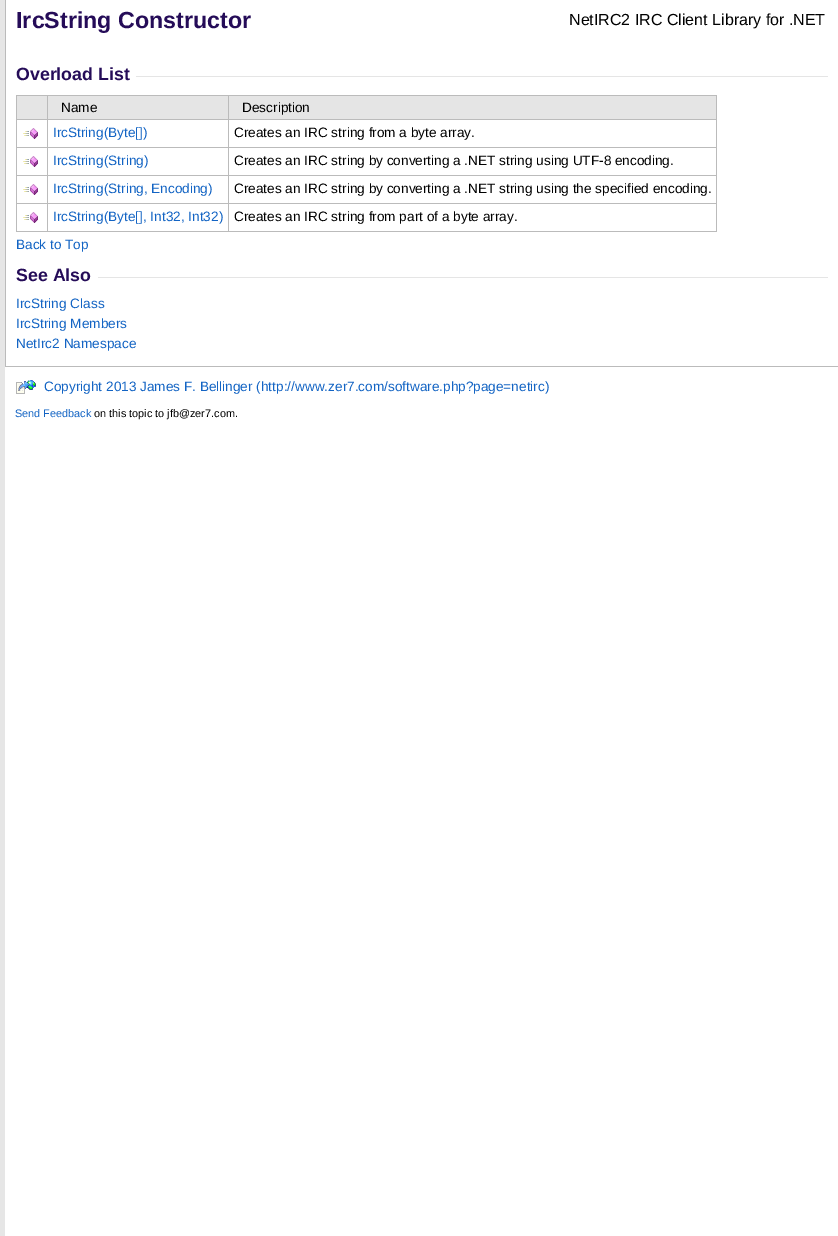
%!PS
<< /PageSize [838 1236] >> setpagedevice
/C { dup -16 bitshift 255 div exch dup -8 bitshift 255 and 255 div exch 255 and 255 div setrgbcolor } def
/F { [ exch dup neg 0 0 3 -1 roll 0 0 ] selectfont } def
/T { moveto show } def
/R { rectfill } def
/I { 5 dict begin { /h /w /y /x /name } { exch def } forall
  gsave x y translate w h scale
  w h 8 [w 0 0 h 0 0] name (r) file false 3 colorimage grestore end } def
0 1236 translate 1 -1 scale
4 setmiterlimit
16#FFFFFF C
0 0 838 1236 R
16#E6E6E6 C
0 0 5 1236 R
16#BBBBBB C
5 0 1 366 R
/LiberationSans-Bold 23.25 F
16#250C58 C
(IrcString Constructor) 16 28 T
/LiberationSans-Regular 16 F
16#000000 C
(NetIRC2 IRC Client Library for .NET) 569 25 T
/LiberationSans-Bold 17.75 F
16#250C58 C
(Overload List) 16 80 T
16#E5E5E5 C
136 76 692 1 R
16#BBBBBB C
16 95 701 1 R
716 95 1 137 R
16 231 701 1 R
16 95 1 137 R
16#E5E5E5 C
17 96 30 23 R
48 96 180 23 R
16#BBBBBB C
228 119 489 1 R
228 147 489 1 R
228 175 489 1 R
228 203 489 1 R
228 203 1 29 R
47 203 182 1 R
228 175 1 29 R
47 175 182 1 R
228 147 1 29 R
47 147 182 1 R
228 119 1 29 R
47 119 182 1 R
47 203 1 29 R
16 203 32 1 R
47 175 1 29 R
16 175 32 1 R
47 147 1 29 R
16 147 32 1 R
47 119 1 29 R
16 119 32 1 R
47 95 1 25 R
/LiberationSans-Regular 13.6 F
16#000000 C
(Name) 61 112 T
16#E5E5E5 C
229 96 487 23 R
16#BBBBBB C
228 95 1 25 R
16#000000 C
(Description) 242 112 T
(1.rgb) 23 128 15 11 I
16#1364C4 C
(IrcString\(Byte[]\)) 53 137 T
16#000000 C
(Creates an IRC string from a byte array.) 234 137 T
(1.rgb) 23 156 15 11 I
16#1364C4 C
(IrcString\(String\)) 53 165 T
16#000000 C
(Creates an IRC string by converting a .NET string using UTF-8 encoding.) 234 165 T
(1.rgb) 23 184 15 11 I
16#1364C4 C
(IrcString\(String, Encoding\)) 53 193 T
16#000000 C
(Creates an IRC string by converting a .NET string using the specified encoding.) 234 193 T
(1.rgb) 23 212 15 11 I
16#1364C4 C
(IrcString\(Byte[], Int32, Int32\)) 53 221 T
16#000000 C
(Creates an IRC string from part of a byte array.) 234 221 T
16#1364C4 C
(Back to Top) 16 249 T
/LiberationSans-Bold 17.75 F
16#250C58 C
(See Also) 16 281 T
16#E5E5E5 C
98 277 730 1 R
/LiberationSans-Regular 13.6 F
16#1364C4 C
(IrcString Class) 16 308 T
(IrcString Members) 16 328 T
(NetIrc2 Namespace) 16 348 T
16#BBBBBB C
5 366 833 1 R
(2.rgb) 16 380 20 14 I
16#1364C4 C
(Copyright 2013 James F. Bellinger \(http://www.zer7.com/software.php?page=netirc\)) 44 391 T
/LiberationSans-Regular 10.9 F
(Send Feedback) 15 417 T
16#000000 C
(on this topic to jfb@zer7.com.) 94 417 T
showpage
